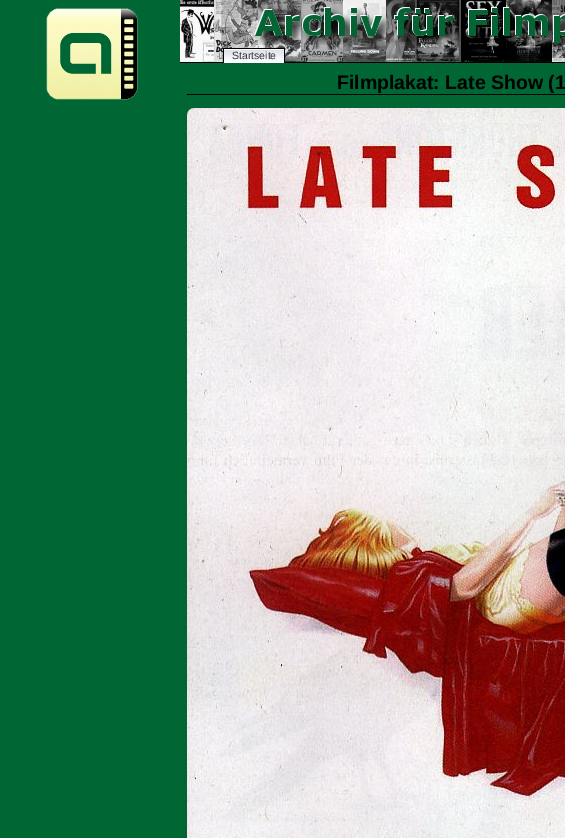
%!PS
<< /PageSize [565 838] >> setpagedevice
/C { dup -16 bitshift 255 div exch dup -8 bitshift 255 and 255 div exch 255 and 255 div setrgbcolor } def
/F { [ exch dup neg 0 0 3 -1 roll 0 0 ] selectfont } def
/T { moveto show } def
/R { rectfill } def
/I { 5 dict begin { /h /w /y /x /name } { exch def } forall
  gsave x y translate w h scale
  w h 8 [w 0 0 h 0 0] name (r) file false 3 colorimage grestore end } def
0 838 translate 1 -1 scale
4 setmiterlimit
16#006633 C
0 0 565 838 R
(1.rgb) 46 8 92 92 I
16#000000 C
180 62 385 1 R
(2.rgb) 180 0 385 62 I
16#FFFFFF C
224 49 60 14 R
(3.rgb) 224 50 60 11 I
16#000000 C
223 48 62 1 R
284 48 1 15 R
223 48 1 15 R
/LiberationSans-Regular 10.5 F
16#333333 C
(Startseite) 232 59 T
16#000000 C
187 94 378 1 R
/LiberationSans-Bold 19.5 F
(Filmplakat: Late Show \(1) 337 89 T
(4.rgb) 187 108 378 730 I
showpage
